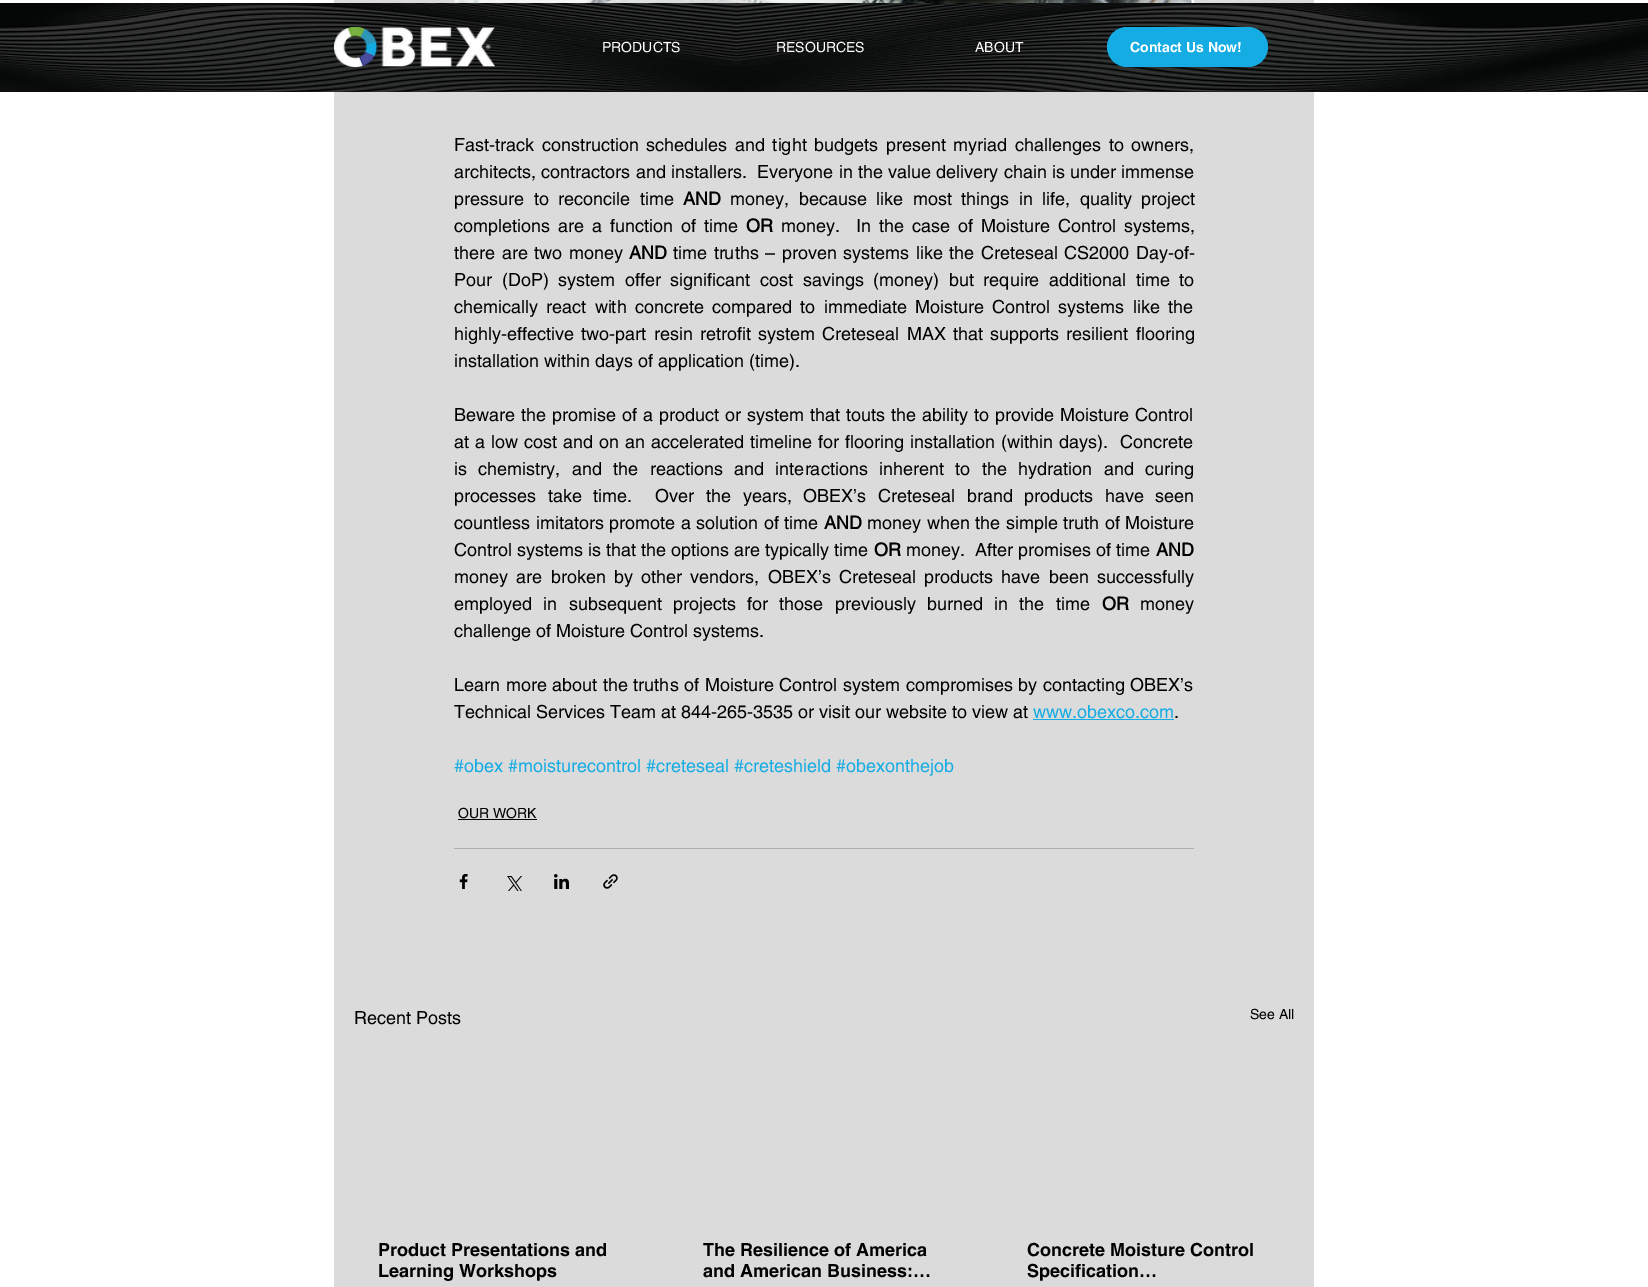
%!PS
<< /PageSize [1648 1287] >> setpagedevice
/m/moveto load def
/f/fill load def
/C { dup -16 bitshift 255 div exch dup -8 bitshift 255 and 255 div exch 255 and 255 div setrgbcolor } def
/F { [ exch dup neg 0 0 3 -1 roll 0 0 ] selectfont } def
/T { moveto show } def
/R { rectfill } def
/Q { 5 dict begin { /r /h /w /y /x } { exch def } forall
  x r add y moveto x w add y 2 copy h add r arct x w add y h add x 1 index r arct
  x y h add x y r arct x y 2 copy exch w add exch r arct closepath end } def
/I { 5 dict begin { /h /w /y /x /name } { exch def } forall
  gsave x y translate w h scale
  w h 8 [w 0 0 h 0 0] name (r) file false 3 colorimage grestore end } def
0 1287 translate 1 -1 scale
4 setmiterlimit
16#FFFFFF C
0 0 1648 1287 R
16#DBDBDB C
334 0 980 1287 R
(1.rgb) 0 3 1648 89 I
(2.rgb) 334 27 161 40 I
/helvetica-Regular 14 F
16#FFFFFF C
(PRODUCTS) 602 52 T
(RESOURCES) 776 52 T
(ABOUT) 975 52 T
16#14ACE3 C
1107 27 161 40 20 Q f
/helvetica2-Bold 14 F
16#FFFFFF C
(Contact Us Now!) 1130 52 T
(3.rgb) 454 0 740 3 I
/helvetica-Regular 18 F
16#000000 C
454 151 m 2.6 0 32 (Fast-track construction schedules and tight budgets present myriad challenges to owners,) widthshow
454 178 m .25 0 32 (architects, contractors and installers.  Everyone in the value delivery chain is under immense) widthshow
454 205 m 4.5 0 32 (pressure to reconcile time) widthshow
/helvetica-Bold 18 F
(AND) 683 205 T
/helvetica-Regular 18 F
730 205 m 4.5 0 32 (money, because like most things in life, quality project) widthshow
454 232 m 3 0 32 (completions are a function of time) widthshow
/helvetica-Bold 18 F
(OR) 746 232 T
/helvetica-Regular 18 F
781 232 m 3 0 32 (money.  In the case of Moisture Control systems,) widthshow
454 259 m 1.5 0 32 (there are two money) widthshow
/helvetica-Bold 18 F
(AND) 629 259 T
/helvetica-Regular 18 F
673 259 m 1.5 0 32 (time truths – proven systems like the Creteseal CS2000 Day-of-) widthshow
454 286 m 4.6 0 32 (Pour \(DoP\) system offer significant cost savings \(money\) but require additional time to) widthshow
454 313 m 3.25 0 32 (chemically react with concrete compared to immediate Moisture Control systems like the) widthshow
454 340 m 2.25 0 32 (highly-effective two-part resin retrofit system Creteseal MAX that supports resilient flooring) widthshow
(installation within days of application \(time\).) 454 367 T
454 421 m 1 0 32 (Beware the promise of a product or system that touts the ability to provide Moisture Control) widthshow
454 448 m 1 0 32 (at a low cost and on an accelerated timeline for flooring installation \(within days\).  Concrete) widthshow
454 475 m 6.4 0 32 (is chemistry, and the reactions and interactions inherent to the hydration and curing) widthshow
454 502 m 6.6 0 32 (processes take time.  Over the years, OBEX’s Creteseal brand products have seen) widthshow
454 529 m .5 0 32 (countless imitators promote a solution of time) widthshow
/helvetica-Bold 18 F
(AND) 824 529 T
/helvetica-Regular 18 F
867 529 m .5 0 32 (money when the simple truth of Moisture) widthshow
(Control systems is that the options are typically time) 454 556 T
/helvetica-Bold 18 F
(OR) 874 556 T
/helvetica-Regular 18 F
(money.  After promises of time) 906 556 T
/helvetica-Bold 18 F
(AND) 1156 556 T
/helvetica-Regular 18 F
454 583 m 3.25 0 32 (money are broken by other vendors, OBEX’s Creteseal products have been successfully) widthshow
454 610 m 6.25 0 32 (employed in subsequent projects for those previously burned in the time) widthshow
/helvetica-Bold 18 F
(OR) 1102 610 T
/helvetica-Regular 18 F
(money) 1140 610 T
(challenge of Moisture Control systems.) 454 637 T
454 691 m .6 0 32 (Learn more about the truths of Moisture Control system compromises by contacting OBEX’s) widthshow
(Technical Services Team at 844-265-3535 or visit our website to view at) 454 718 T
16#14ACE3 C
(www.obexco.com) 1033 718 T
1033 719 141 1 R
16#000000 C
(.) 1174 718 T
16#14ACE3 C
(#obex #moisturecontrol #creteseal #creteshield #obexonthejob) 454 772 T
/helvetica-Regular 14 F
16#000000 C
(OUR WORK) 458 818 T
458 819 79 1 R
16#AFAFAF C
454 848 740 1 R
(4.rgb) 459 874 9 15 I
(5.rgb) 507 876 15 15 I
(6.rgb) 554 874 15 15 I
(7.rgb) 603 874 15 15 I
/helvetica-Regular 18 F
16#000000 C
(Recent Posts) 354 1024 T
/helvetica-Regular 14 F
(See All) 1250 1019 T
/helvetica2-Bold 18 F
(Product Presentations and) 378 1256 T
(Learning Workshops) 378 1277 T
(The Resilience of America) 703 1256 T
(and American Business:…) 703 1277 T
(Concrete Moisture Control) 1027 1256 T
(Specification…) 1027 1277 T
showpage
